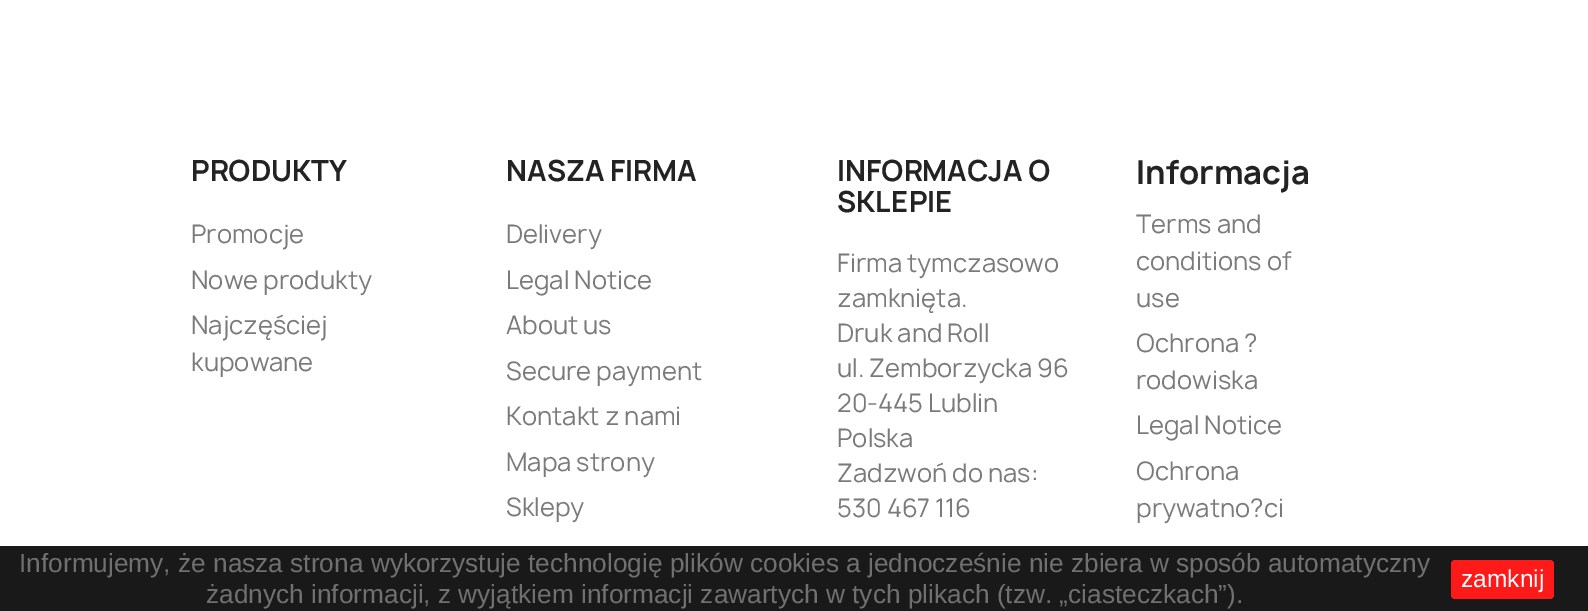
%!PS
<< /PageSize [1588 611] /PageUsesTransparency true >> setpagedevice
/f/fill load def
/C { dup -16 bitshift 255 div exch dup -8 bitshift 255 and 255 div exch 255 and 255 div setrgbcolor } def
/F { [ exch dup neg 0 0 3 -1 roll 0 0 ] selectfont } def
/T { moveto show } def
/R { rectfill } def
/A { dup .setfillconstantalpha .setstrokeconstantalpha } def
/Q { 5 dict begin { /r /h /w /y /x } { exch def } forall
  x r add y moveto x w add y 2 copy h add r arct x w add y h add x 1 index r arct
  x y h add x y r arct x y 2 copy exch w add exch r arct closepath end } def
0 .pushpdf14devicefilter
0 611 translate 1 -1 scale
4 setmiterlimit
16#FFFFFF C
0 0 1588 611 R
/Manrope-Bold 28 F
16#232323 C
(PRODUKTY) 191 181 T
/Manrope-Regular 24.5 F
16#7A7A7A C
(Promocje) 191 243 T
(Nowe produkty) 191 289 T
(Najczęściej) 191 334 T
(kupowane) 191 371 T
/Manrope-Bold 28 F
16#232323 C
(NASZA FIRMA) 506 181 T
/Manrope-Regular 24.5 F
16#7A7A7A C
(Delivery) 506 243 T
(Legal Notice) 506 289 T
(About us) 506 334 T
(Secure payment) 506 380 T
(Kontakt z nami) 506 425 T
(Mapa strony) 506 471 T
(Sklepy) 506 516 T
/Manrope-Bold 28 F
16#232323 C
(INFORMACJA O) 837 181 T
(SKLEPIE) 837 212 T
/Manrope-Regular 24.5 F
16#7A7A7A C
(Firma tymczasowo) 837 272 T
(zamknięta.) 837 307 T
(Druk and Roll) 837 342 T
(ul. Zemborzycka 96) 837 377 T
(20-445 Lublin) 837 412 T
(Polska) 837 447 T
(Zadzwoń do nas:) 837 482 T
(530 467 116) 837 517 T
/Manrope-Bold 31.5 F
16#232323 C
(Informacja) 1136 184 T
/Manrope-Regular 24.5 F
16#7A7A7A C
(Terms and) 1136 233 T
(conditions of) 1136 270 T
(use) 1136 307 T
(Ochrona ?) 1136 352 T
(rodowiska) 1136 389 T
(Legal Notice) 1136 434 T
(Ochrona) 1136 480 T
(prywatno?ci) 1136 517 T
0.9 A
16#000000 C
0 546 1588 65 R
/LiberationSans-Regular 26.25 F
1 A
16#707070 C
(Informujemy, że nasza strona wykorzystuje technologię plików cookies a jednocześnie nie zbiera w sposób automatyczny) 19 572 T
(żadnych informacji, z wyjątkiem informacji zawartych w tych plikach \(tzw. „ciasteczkach”\).) 206 603 T
16#FF1A1A C
1451 560 103 39 4 Q f
/LiberationSans-Regular 24.5 F
16#FFFFFF C
(zamknij) 1461 587 T
.poppdf14devicefilter showpage
